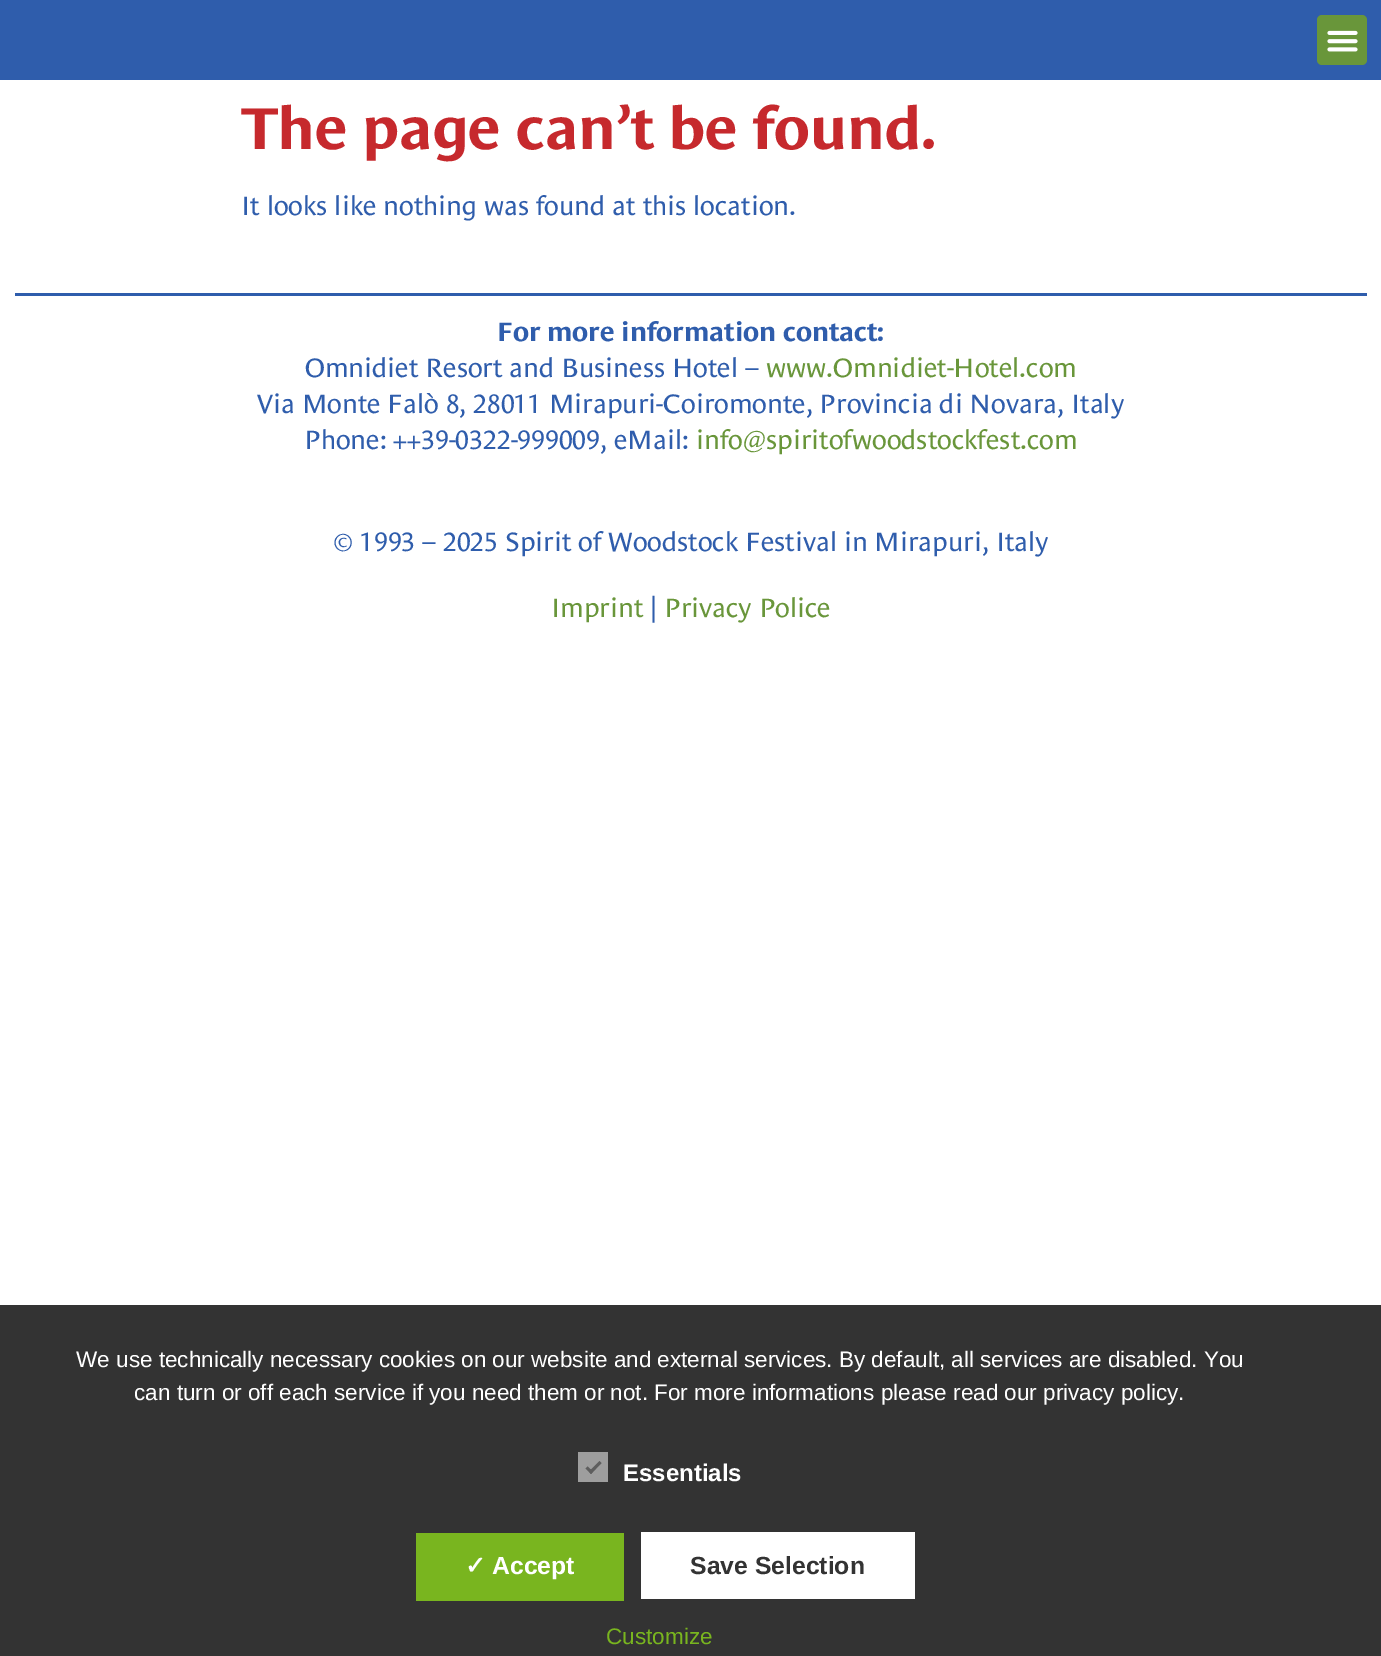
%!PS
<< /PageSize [1381 1656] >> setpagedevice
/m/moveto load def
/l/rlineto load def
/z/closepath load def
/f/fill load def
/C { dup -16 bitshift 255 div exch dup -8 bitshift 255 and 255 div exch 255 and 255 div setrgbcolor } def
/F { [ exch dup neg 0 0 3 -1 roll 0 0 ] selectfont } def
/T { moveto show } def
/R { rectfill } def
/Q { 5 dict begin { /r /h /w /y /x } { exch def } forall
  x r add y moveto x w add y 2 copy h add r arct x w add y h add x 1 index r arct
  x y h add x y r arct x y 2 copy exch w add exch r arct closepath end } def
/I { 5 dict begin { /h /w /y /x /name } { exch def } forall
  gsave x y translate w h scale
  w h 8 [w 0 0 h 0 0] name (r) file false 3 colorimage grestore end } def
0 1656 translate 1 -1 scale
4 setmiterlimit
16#FFFFFF C
0 0 1381 1656 R
16#2F5DAC C
0 0 1381 80 R
16#69963A C
1317 15 50 50 5 Q f
(1.rgb) 1327 30 31 22 I
/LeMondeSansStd-Bold 60 F
16#C6292D C
(The page can’t be found.) 241 149 T
/LeMondeSansStd-Regular 27 F
16#2F5DAC C
(It looks like nothing was found at this location.) 241 215 T
15 293 1352 3 R
/LeMondeSansStd-Bold 27 F
(For more information contact:) 497 341 T
/LeMondeSansStd-Regular 27 F
(Omnidiet Resort and Business Hotel –) 305 377 T
16#69963A C
(www.Omnidiet-Hotel.com) 766 377 T
16#2F5DAC C
(Via Monte Falò 8, 28011 Mirapuri-Coiromonte, Provincia di Novara, Italy) 257 413 T
(Phone: ++39-0322-999009, eMail:) 304 449 T
16#69963A C
(info@spiritofwoodstockfest.com) 696 449 T
16#2F5DAC C
(© 1993 – 2025 Spirit of Woodstock Festival in Mirapuri, Italy) 333 551 T
16#69963A C
(Imprint) 551 617 T
16#2F5DAC C
(|) 650 617 T
16#69963A C
(Privacy Police) 664 617 T
16#333333 C
0 1305 1381 351 R
/LiberationSans-Regular 22.5 F
16#FFFFFF C
(We use technically necessary cookies on our website and external services. By default, all services are disabled. You) 76 1367 T
(can turn or off each service if you need them or not. For more informations please read our privacy policy.) 134 1400 T
16#9E9E9E C
578 1452 30 30 R
16#5E5E5E C
599.5 1461 m 2 2 l -10.5 11 l -2 -2.5 l z f
587.5 1466.5 m 5.5 5 l -2 2.5 l -5.5 -5.5 l z f
/LiberationSans-Bold 24 F
16#FFFFFF C
(Essentials) 623 1481 T
16#79B51F C
416 1533 208 68 R
/DejaVuSans-Bold 24.75 F
16#FFFFFF C
(✓) 465 1574 T
/LiberationSans-Bold 24.75 F
(Accept) 492 1574 T
641 1532 274 67 R
16#333333 C
(Save Selection) 690 1574 T
/LiberationSans-Regular 22.5 F
16#79B51F C
(Customize) 606 1644 T
showpage
